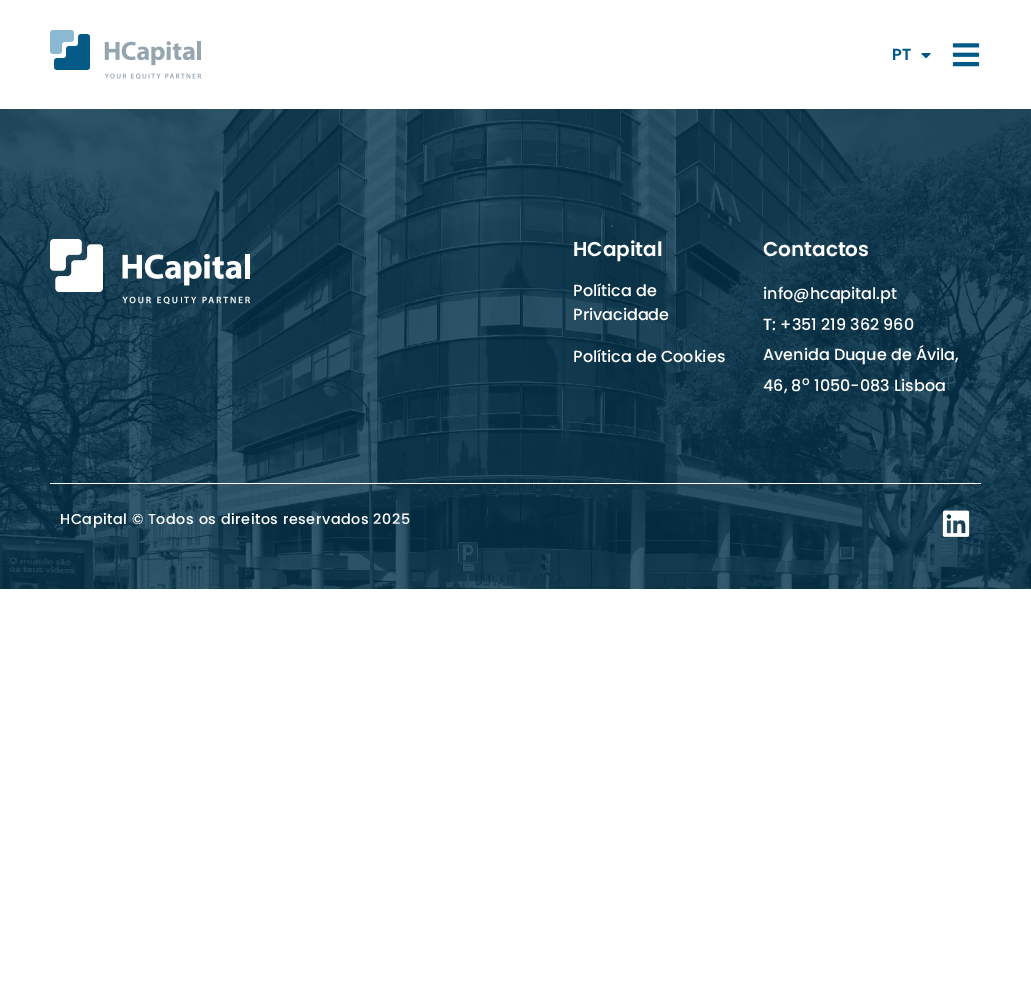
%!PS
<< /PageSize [1031 1007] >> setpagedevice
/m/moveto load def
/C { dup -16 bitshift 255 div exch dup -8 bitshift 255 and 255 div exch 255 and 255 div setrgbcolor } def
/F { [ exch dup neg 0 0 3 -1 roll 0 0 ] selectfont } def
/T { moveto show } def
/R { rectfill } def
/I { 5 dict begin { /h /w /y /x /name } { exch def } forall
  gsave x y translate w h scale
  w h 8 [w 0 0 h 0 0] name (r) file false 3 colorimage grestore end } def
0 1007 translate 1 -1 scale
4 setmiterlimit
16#FFFFFF C
0 0 1031 1007 R
(1.rgb) 50 30 151 49 I
/Poppins-SemiBold 16 F
16#005986 C
(PT) 892 60 T
(2.rgb) 921 53 10 6 I
(3.rgb) 952 43 28 24 I
(4.rgb) 0 109 1031 480 I
(5.rgb) 50 239 200 66 I
/Poppins-SemiBold 20 F
16#FFFFFF C
(HCapital) 573 256 T
/Poppins-Medium 16 F
(Política de) 573 296 T
(Privacidade) 573 320 T
(Política de Cookies) 573 362 T
/Poppins-SemiBold 20 F
(Contactos) 763 256 T
/Poppins-Medium 16 F
(info@hcapital.pt) 763 299 T
(T: +351 219 362 960) 763 330 T
(Avenida Duque de Ávila,) 763 360 T
(46, 8) 763 391 T
/Poppins-Medium 12 F
(o) 802 385 T
/Poppins-Medium 16 F
(1050-083 Lisboa) 814 391 T
50 483 931 1 R
/Poppins-Medium 14.4 F
60 524 m .5 0 (HCapital © Todos os direitos reservados 2025) ashow
(6.rgb) 942 510 28 27 I
showpage
